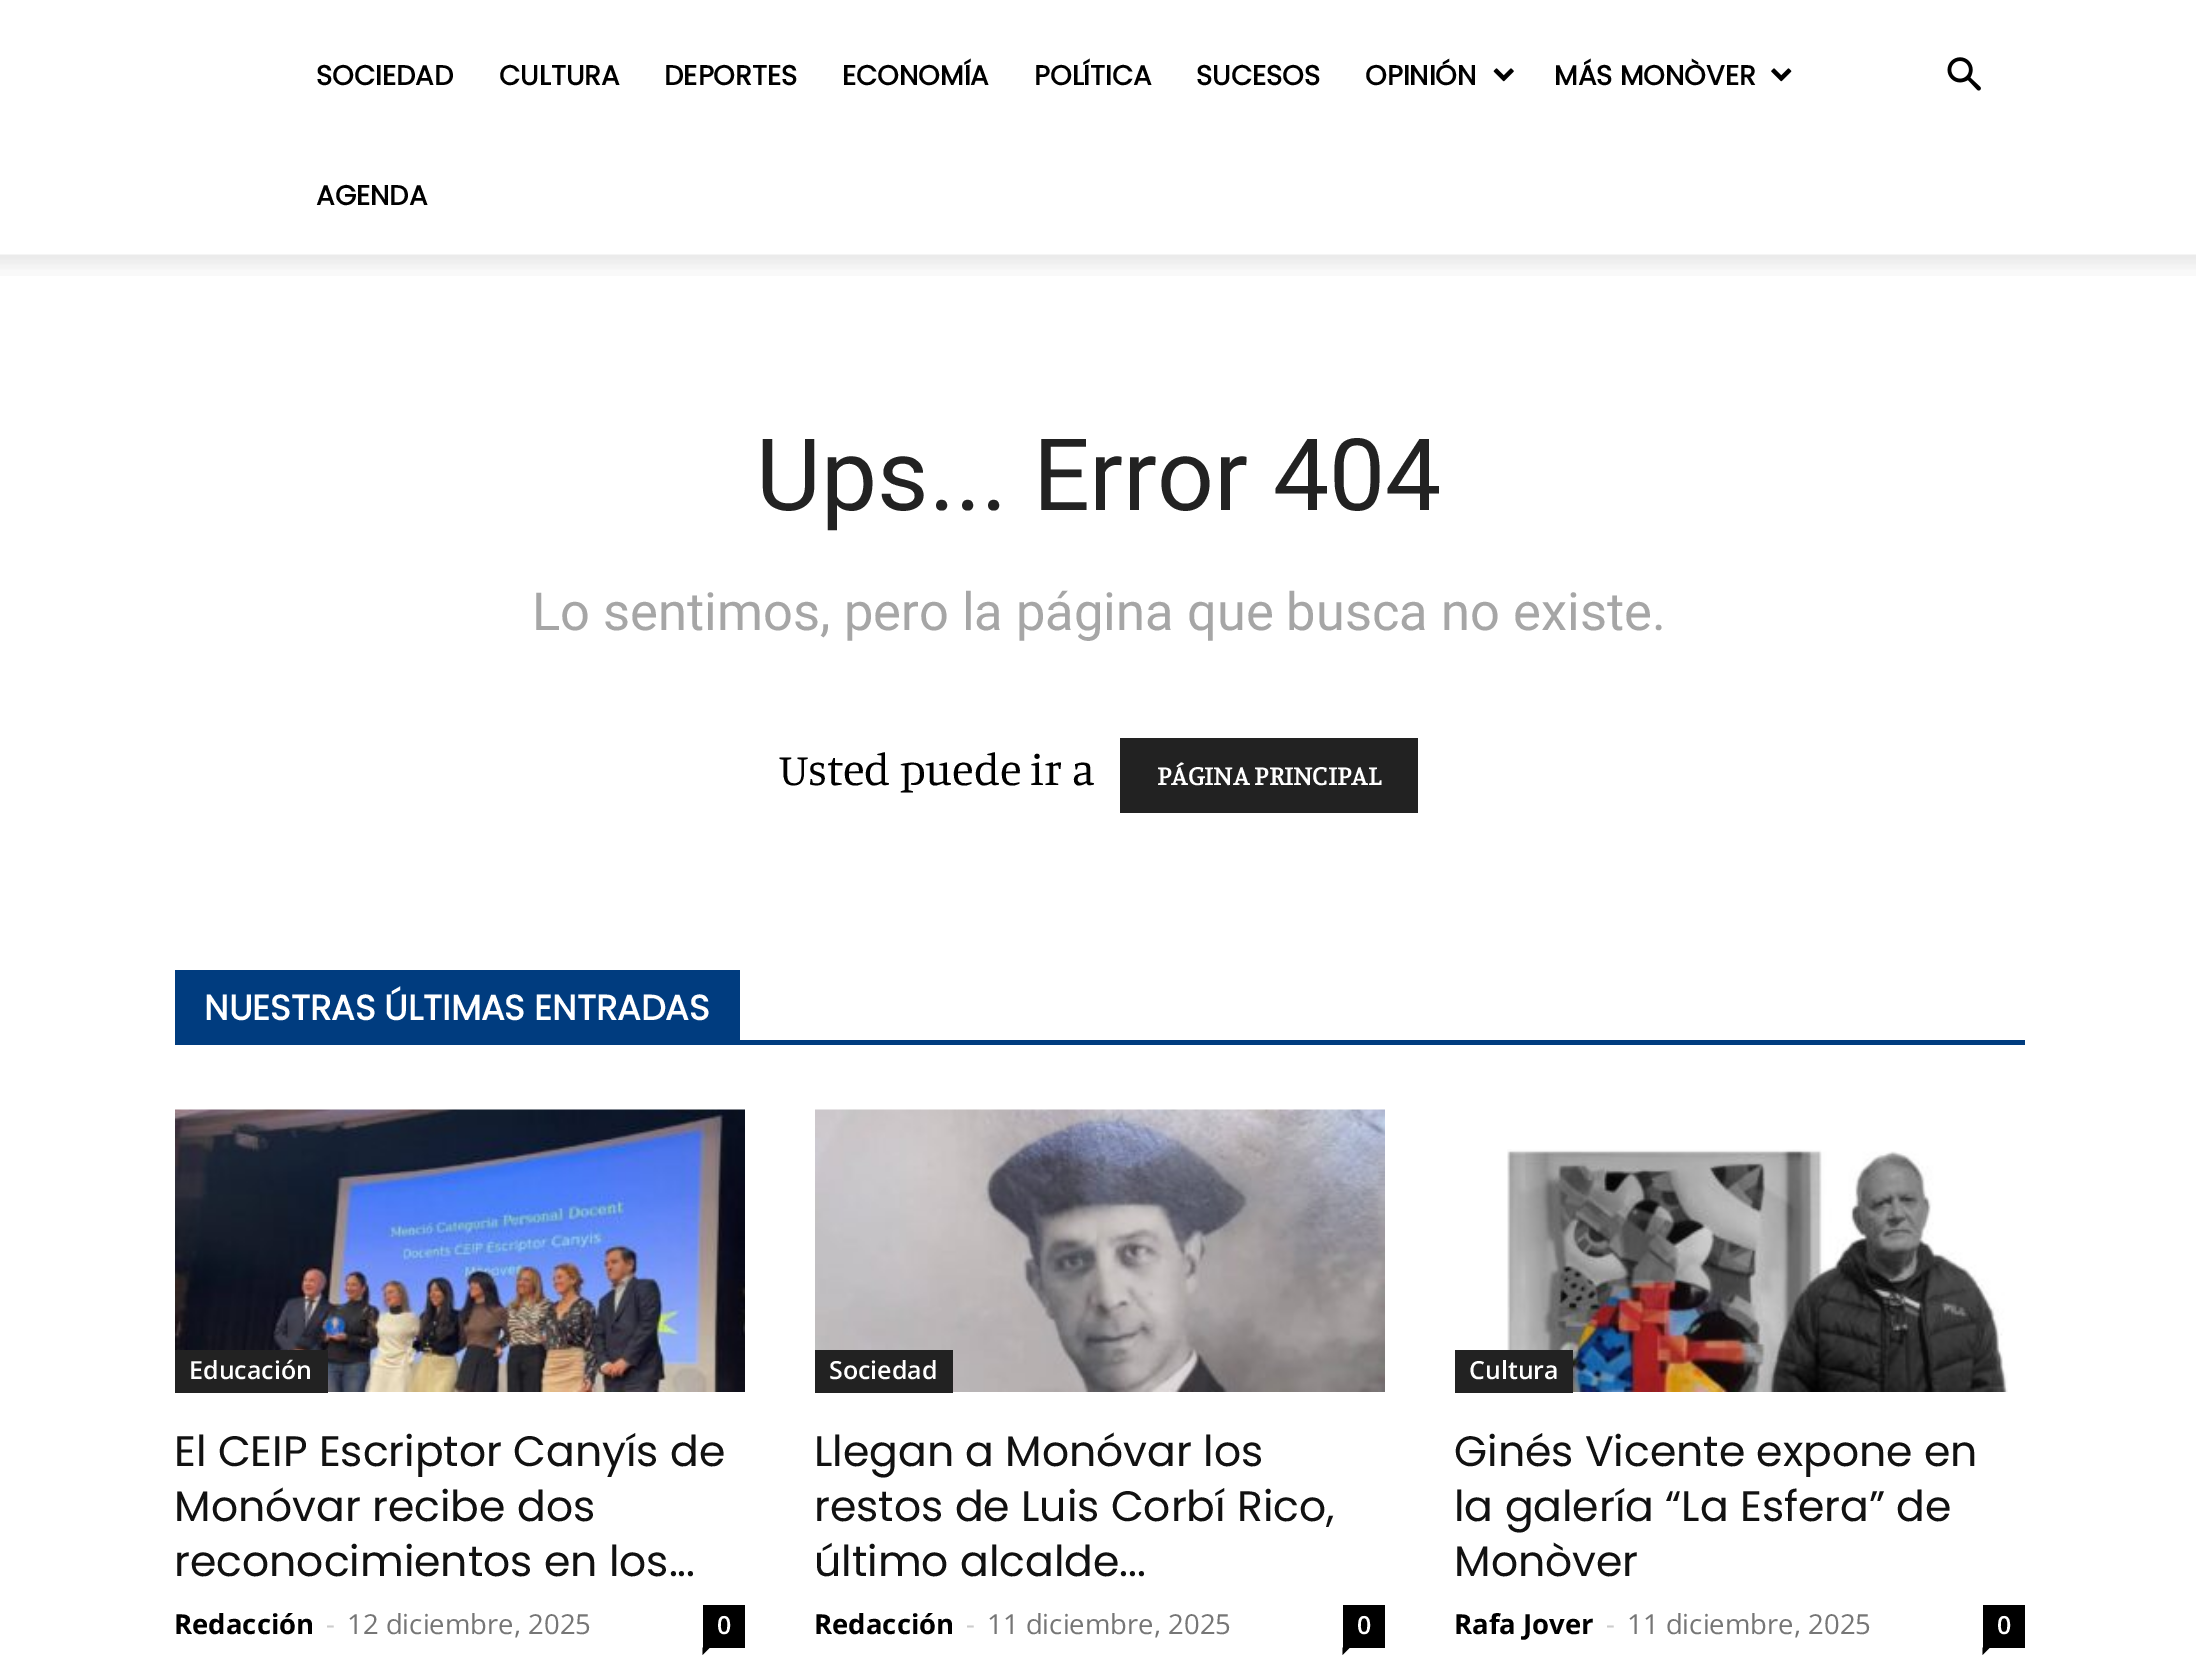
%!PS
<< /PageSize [2196 1673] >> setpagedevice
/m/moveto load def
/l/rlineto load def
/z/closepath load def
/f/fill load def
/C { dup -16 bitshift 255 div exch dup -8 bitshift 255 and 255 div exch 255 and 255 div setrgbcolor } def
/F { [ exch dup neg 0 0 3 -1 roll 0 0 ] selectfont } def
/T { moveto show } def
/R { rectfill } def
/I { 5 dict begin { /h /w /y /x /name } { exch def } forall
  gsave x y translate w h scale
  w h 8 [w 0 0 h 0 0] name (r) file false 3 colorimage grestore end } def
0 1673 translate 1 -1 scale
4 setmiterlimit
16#FFFFFF C
0 0 2196 1673 R
/Poppins-Bold 27.5 F
16#000000 C
(SOCIEDAD) 316 85 T
(CULTURA) 499 85 T
(DEPORTES) 664 85 T
(ECONOMÍA) 842 85 T
(POLÍTICA) 1034 85 T
(SUCESOS) 1196 85 T
(OPINIÓN) 1365 85 T
(1.rgb) 1493 68 21 14 I
(MÁS MONÒVER) 1554 85 T
(2.rgb) 1771 68 21 14 I
(AGENDA) 316 205 T
(3.rgb) 1947 57 34 34 I
(4.rgb) 0 254 2196 22 I
/Roboto-Regular 100 F
16#222222 C
(Ups... Error 404) 756 510 T
/Roboto-Regular 52.5 F
16#A6A6A6 C
(Lo sentimos, pero la página que busca no existe.) 532 630 T
/Manuale-Regular 45 F
16#000000 C
(Usted puede ir a) 779 785 T
16#222222 C
1120 738 298 75 R
/Manuale-Bold 27.5 F
16#FFFFFF C
(PÁGINA PRINCIPAL) 1157 785 T
16#003C7F C
175 1040 1850 5 R
175 970 565 70 R
/Poppins-Bold 35 F
16#FFFFFF C
(NUESTRAS ÚLTIMAS ENTRADAS) 204 1020 T
(5.rgb) 175 1109 570 283 I
16#222222 C
175 1350 153 43 R
/OpenSans-SemiBold 25 F
16#FFFFFF C
(Educación) 189 1379 T
/Poppins-Regular 42.5 F
16#111111 C
(El CEIP Escriptor Canyís de) 174 1466 T
(Monóvar recibe dos) 174 1521 T
(reconocimientos en los...) 174 1576 T
/OpenSans-Bold 27.5 F
16#000000 C
(Redacción) 174 1634 T
/OpenSans-Regular 27.5 F
16#CCCCCC C
(-) 326 1634 T
16#767676 C
(12 diciembre, 2025) 347 1634 T
16#000000 C
703 1605 42 43 R
/OpenSans-SemiBold 25 F
16#FFFFFF C
(0) 717 1634 T
16#000000 C
702.5 1647.5 m 7.5 0 l -7.5 7.5 l z f
(6.rgb) 815 1109 570 283 I
16#222222 C
815 1350 138 43 R
16#FFFFFF C
(Sociedad) 829 1379 T
/Poppins-Regular 42.5 F
16#111111 C
(Llegan a Monóvar los) 814 1466 T
(restos de Luis Corbí Rico,) 814 1521 T
(último alcalde...) 814 1576 T
/OpenSans-Bold 27.5 F
16#000000 C
(Redacción) 814 1634 T
/OpenSans-Regular 27.5 F
16#CCCCCC C
(-) 966 1634 T
16#767676 C
(11 diciembre, 2025) 987 1634 T
16#000000 C
1343 1605 42 43 R
/OpenSans-SemiBold 25 F
16#FFFFFF C
(0) 1357 1634 T
16#000000 C
1342.5 1647.5 m 7.5 0 l -7.5 7.5 l z f
(7.rgb) 1507 1149 501 243 I
16#222222 C
1455 1350 118 43 R
16#FFFFFF C
(Cultura) 1469 1379 T
/Poppins-Regular 42.5 F
16#111111 C
(Ginés Vicente expone en) 1454 1466 T
(la galería “La Esfera” de) 1454 1521 T
(Monòver) 1454 1576 T
/OpenSans-Bold 27.5 F
16#000000 C
(Rafa Jover) 1454 1634 T
/OpenSans-Regular 27.5 F
16#CCCCCC C
(-) 1606 1634 T
16#767676 C
(11 diciembre, 2025) 1627 1634 T
16#000000 C
1983 1605 42 43 R
/OpenSans-SemiBold 25 F
16#FFFFFF C
(0) 1997 1634 T
16#000000 C
1982.5 1647.5 m 7.5 0 l -7.5 7.5 l z f
showpage
